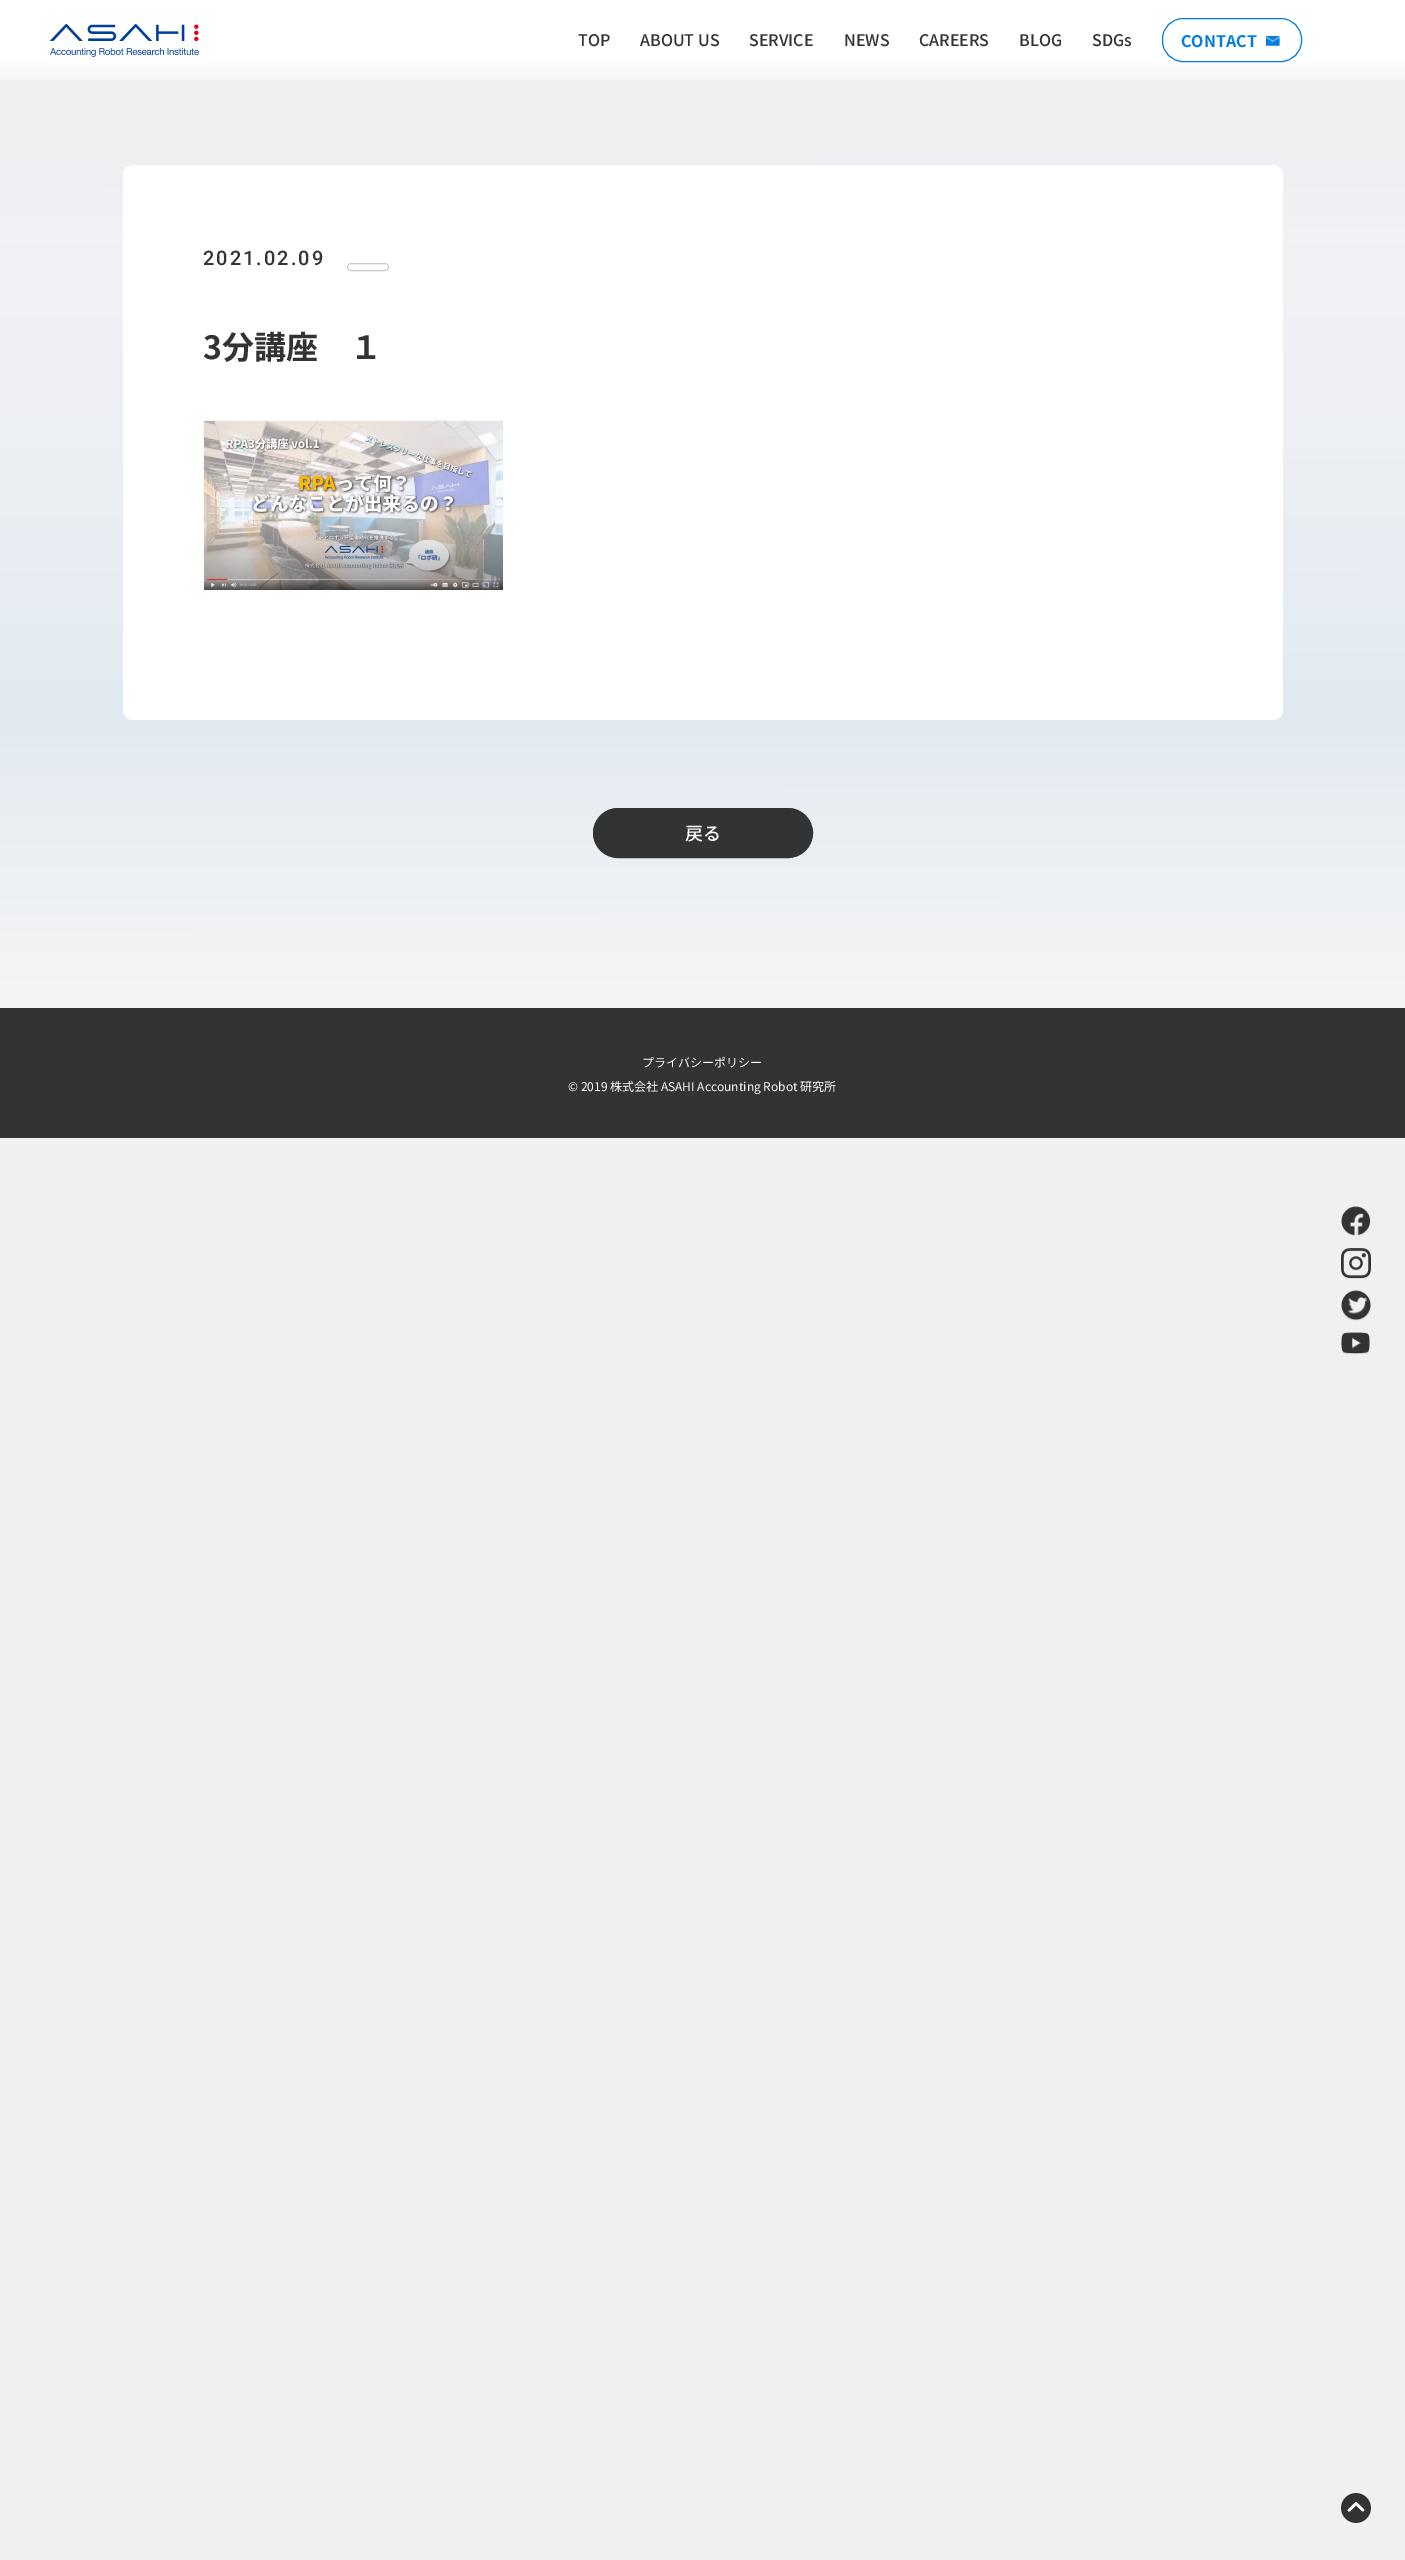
%!PS
<< /PageSize [1405 2560] >> setpagedevice
/m/moveto load def
/l/rlineto load def
/z/closepath load def
/f/fill load def
/s/stroke load def
/q/gsave load def
/Q_/grestore load def
/C { dup -16 bitshift 255 div exch dup -8 bitshift 255 and 255 div exch 255 and 255 div setrgbcolor } def
/F { [ exch dup neg 0 0 3 -1 roll 0 0 ] selectfont } def
/T { moveto show } def
/R { rectfill } def
/Q { 5 dict begin { /r /h /w /y /x } { exch def } forall
  x r add y moveto x w add y 2 copy h add r arct x w add y h add x 1 index r arct
  x y h add x y r arct x y 2 copy exch w add exch r arct closepath end } def
/I { 5 dict begin { /h /w /y /x /name } { exch def } forall
  gsave x y translate w h scale
  w h 8 [w 0 0 h 0 0] name (r) file false 3 colorimage grestore end } def
0 2560 translate 1 -1 scale
4 setmiterlimit
16#EFF0F0 C
0 0 1405 2560 R
q 0 0 m 1405 0 l 0 80 l -1405 0 l z clip newpath
<< /ShadingType 2 /ColorSpace /DeviceRGB /Coords [703 0 703 80] /Extend [true true] /Function << /FunctionType 3 /Domain [0 1] /Functions [<< /FunctionType 2 /Domain [0 1] /C0 [1 1 1] /C1 [1 1 1] /N 1 >> << /FunctionType 2 /Domain [0 1] /C0 [1 1 1] /C1 [.965 .965 .965] /N 1 >>] /Bounds [.7] /Encode [0 1 0 1] >> >> shfill Q_
(1.rgb) 50 24 149 33 I
/NotoSansJP-Medium 16 F
16#333333 C
(TOP) 578 46 T
(ABOUT US) 640 46 T
(SERVICE) 749 46 T
(NEWS) 844 46 T
(CAREERS) 919 46 T
(BLOG) 1019 46 T
(SDGs) 1092 46 T
16#037EDF C
1162.5 18.5 139 43 20.5 Q s
/NotoSansJP-Bold 16 F
(CONTACT) 1181 47 T
(2.rgb) 1266 36 14 10 I
q 0 135 m 1405 0 l 0 873 l -1405 0 l z clip newpath
<< /ShadingType 2 /ColorSpace /DeviceRGB /Coords [702 0 703 1008] /Extend [true true] /Function << /FunctionType 3 /Domain [0 1] /Functions [<< /FunctionType 2 /Domain [0 1] /C0 [.922 .929 .933] /C1 [.949 .945 .965] /N 1 >> << /FunctionType 2 /Domain [0 1] /C0 [.949 .945 .965] /C1 [.925 .937 .957] /N 1 >> << /FunctionType 2 /Domain [0 1] /C0 [.925 .937 .957] /C1 [.886 .918 .945] /N 1 >> << /FunctionType 2 /Domain [0 1] /C0 [.886 .918 .945] /C1 [.961 .961 .965] /N 1 >>] /Bounds [.24 .44 .71] /Encode [0 1 0 1 0 1 0 1] >> >> shfill Q_
16#FFFFFF C
123 165 1160 555 10 Q f
/Roboto-Medium 20 F
16#333333 C
203 265 m 2 0 (2021.02.09) ashow
16#CCCCCC C
347.5 263.5 41 7 3.5 Q s
/NotoSansJP-Bold 32 F
16#333333 C
(3分講座　１) 203 359 T
(3.rgb) 203 420 300 170 I
593.5 808.5 219 49 24.5 Q q f Q_
s
/NotoSansJP-Medium 18 F
16#FFFFFF C
(戻る) 685 840 T
16#333333 C
0 1008 1405 130 R
/NotoSansJP-Regular 12 F
16#FFFFFF C
(プライバシーポリシー) 642 1067 T
(© 2019 株式会社 ASAHI Accounting Robot 研究所) 568 1091 T
(4.rgb) 1341 1206 30 30 I
(5.rgb) 1341 1248 30 31 I
(6.rgb) 1341 1290 30 31 I
(7.rgb) 1341 1332 29 22 I
(8.rgb) 1341 2493 30 30 I
showpage
